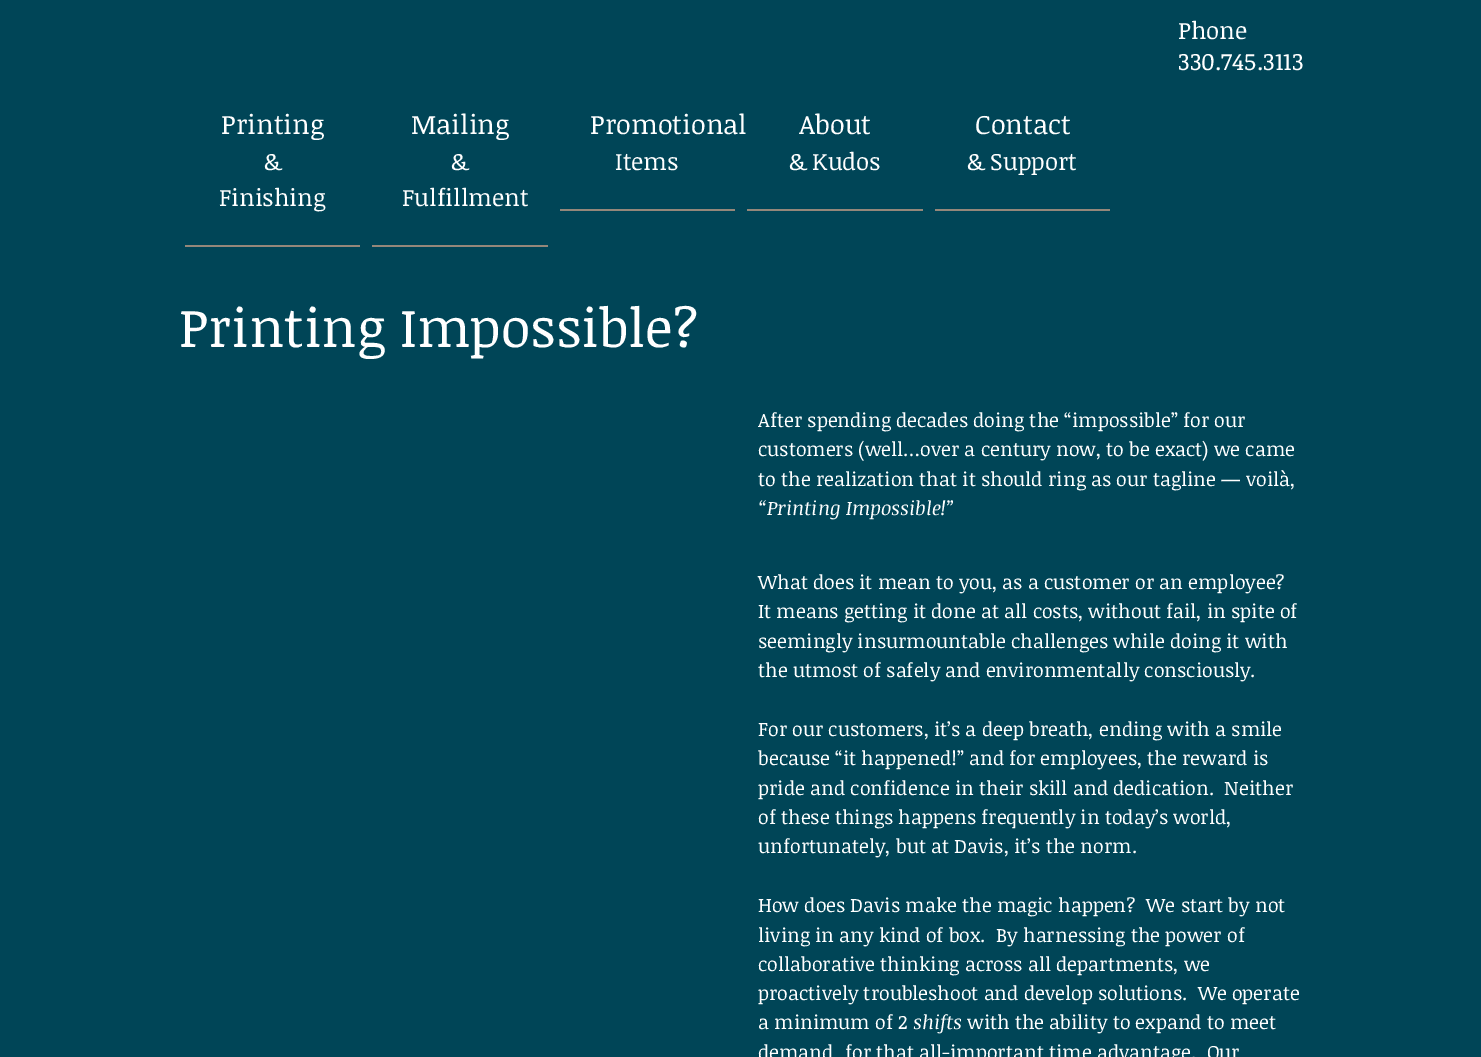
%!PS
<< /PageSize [1481 1057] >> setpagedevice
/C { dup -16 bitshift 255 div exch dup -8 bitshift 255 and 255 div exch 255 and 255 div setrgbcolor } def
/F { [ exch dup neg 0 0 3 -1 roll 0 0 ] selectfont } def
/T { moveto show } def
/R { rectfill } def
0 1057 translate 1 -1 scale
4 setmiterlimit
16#004557 C
0 0 1481 1057 R
/NoticiaText-Regular 24 F
16#FFFFFF C
(Phone) 1178 39 T
(330.745.3113) 1178 70 T
16#94877A C
185 245 175 2 R
/NoticiaText-Regular 27 F
16#FFFFFF C
(Printing) 221 134 T
/NoticiaText-Regular 24 F
(&) 264 170 T
(Finishing) 219 206 T
16#94877A C
372 245 176 2 R
/NoticiaText-Regular 27 F
16#FFFFFF C
(Mailing) 411 134 T
/NoticiaText-Regular 24 F
(&) 451 170 T
(Fulfillment) 402 206 T
16#94877A C
560 209 175 2 R
/NoticiaText-Regular 27 F
16#FFFFFF C
(Promotional) 590 134 T
/NoticiaText-Regular 24 F
(Items) 615 170 T
16#94877A C
747 209 176 2 R
/NoticiaText-Regular 27 F
16#FFFFFF C
(About) 799 134 T
/NoticiaText-Regular 24 F
(& Kudos) 789 170 T
16#94877A C
935 209 175 2 R
/NoticiaText-Regular 27 F
16#FFFFFF C
(Contact) 975 134 T
/NoticiaText-Regular 24 F
(& Support) 967 170 T
/NoticiaText-Regular 54 F
(Printing Impossible?) 179 347 T
/NoticiaText-Regular 19.5 F
(After spending decades doing the “impossible” for our) 758 427 T
(customers \(well…over a century now, to be exact\) we came) 758 456 T
(to the realization that it should ring as our tagline — voilà,) 758 486 T
/NoticiaText-Italic 19.5 F
(“Printing Impossible!”) 758 515 T
/NoticiaText-Regular 19.5 F
(What does it mean to you, as a customer or an employee?) 758 589 T
(It means getting it done at all costs, without fail, in spite of) 758 618 T
(seemingly insurmountable challenges while doing it with) 758 648 T
(the utmost of safely and environmentally consciously.) 758 677 T
(For our customers, it’s a deep breath, ending with a smile) 758 736 T
(because “it happened!” and for employees, the reward is) 758 765 T
(pride and confidence in their skill and dedication.  Neither) 758 795 T
(of these things happens frequently in today’s world,) 758 824 T
(unfortunately, but at Davis, it’s the norm.) 758 853 T
(How does Davis make the magic happen?  We start by not) 758 912 T
(living in any kind of box.  By harnessing the power of) 758 942 T
(collaborative thinking across all departments, we) 758 971 T
(proactively troubleshoot and develop solutions.  We operate) 758 1000 T
(a minimum of 2) 758 1029 T
/NoticiaText-Italic 19.5 F
(shifts) 913 1029 T
/NoticiaText-Regular 19.5 F
(with the ability to expand to meet) 967 1029 T
(demand) 758 1059 T
(for that all-important time advantage.  Our) 845 1059 T
showpage
